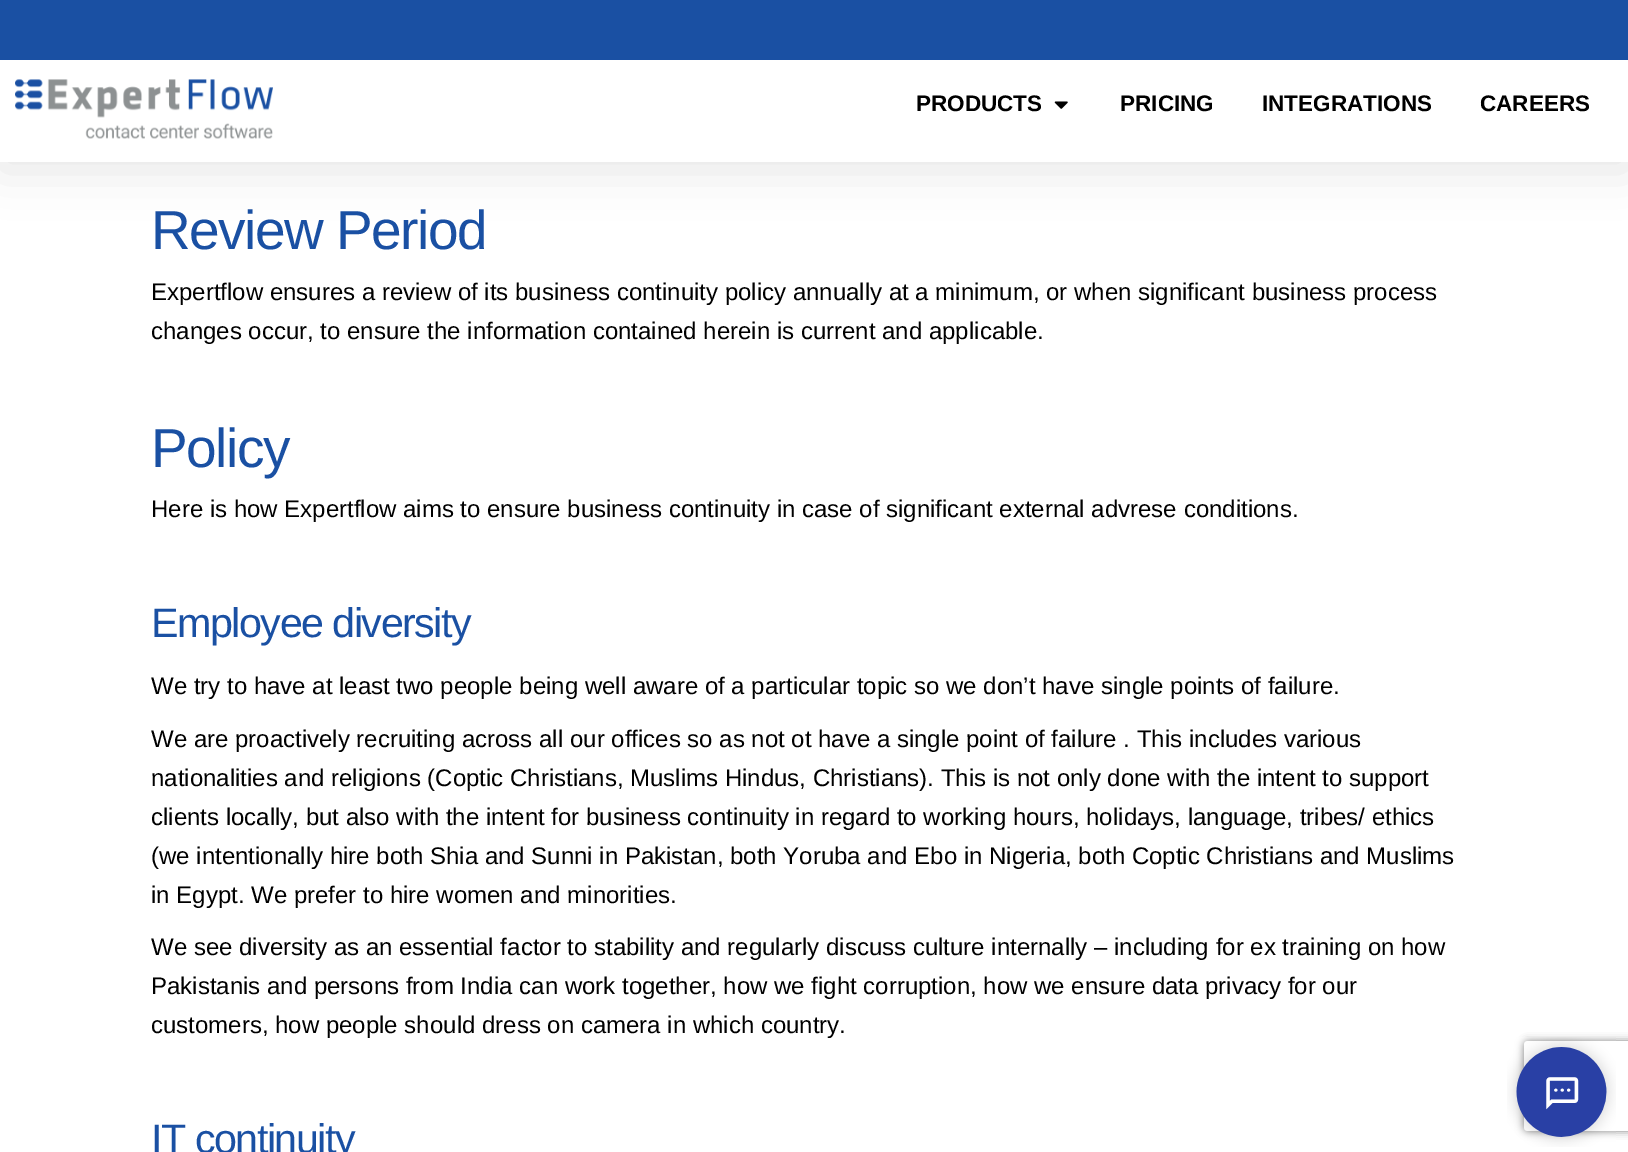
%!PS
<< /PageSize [1628 1152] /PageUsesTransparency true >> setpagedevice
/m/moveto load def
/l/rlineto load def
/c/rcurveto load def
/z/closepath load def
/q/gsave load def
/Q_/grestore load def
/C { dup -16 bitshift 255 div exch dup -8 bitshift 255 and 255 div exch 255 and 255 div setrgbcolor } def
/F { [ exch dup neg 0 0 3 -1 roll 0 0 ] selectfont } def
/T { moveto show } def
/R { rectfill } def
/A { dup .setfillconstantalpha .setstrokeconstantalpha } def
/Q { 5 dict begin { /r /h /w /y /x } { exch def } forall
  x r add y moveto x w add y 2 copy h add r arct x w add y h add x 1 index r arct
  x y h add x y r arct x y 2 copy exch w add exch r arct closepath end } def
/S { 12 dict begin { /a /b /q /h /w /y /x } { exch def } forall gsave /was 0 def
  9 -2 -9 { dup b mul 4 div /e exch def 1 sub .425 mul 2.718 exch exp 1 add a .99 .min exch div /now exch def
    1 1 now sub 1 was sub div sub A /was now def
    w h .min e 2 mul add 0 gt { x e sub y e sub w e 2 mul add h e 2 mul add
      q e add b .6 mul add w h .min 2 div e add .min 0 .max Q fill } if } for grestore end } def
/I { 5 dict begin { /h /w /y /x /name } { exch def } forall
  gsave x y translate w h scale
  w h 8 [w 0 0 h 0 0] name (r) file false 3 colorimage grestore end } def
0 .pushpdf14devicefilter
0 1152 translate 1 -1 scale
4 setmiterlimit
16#FFFFFF C
0 0 1628 1152 R
16#000000 C
0 8 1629 162 0 22.5 .1 S
16#1A50A3 C
0 0 1628 60 R
16#FFFFFF C
0 60 1628 102 R
(1.rgb) 15 79 258 60 I
/LiberationSans-Bold 22.5 F
16#000000 C
(PRODUCTS) 916 111 T
(2.rgb) 1054 101 14 8 I
(PRICING) 1120 111 T
(INTEGRATIONS) 1262 111 T
(CAREERS) 1480 111 T
/LiberationSans-Regular 55 F
16#1A50A3 C
151 249 m -1.5 0 (Review Period) ashow
/LiberationSans-Regular 24 F
16#000000 C
(Expertflow ensures a review of its business continuity policy annually at a minimum, or when significant business process) 151 300 T
(changes occur, to ensure the information contained herein is current and applicable.) 151 339 T
/LiberationSans-Regular 55 F
16#1A50A3 C
151 467 m -1.5 0 (Policy) ashow
/LiberationSans-Regular 24 F
16#000000 C
(Here is how Expertflow aims to ensure business continuity in case of significant external advrese conditions.) 151 517 T
/LiberationSans-Regular 41.25 F
16#1A50A3 C
151 637 m -1.5 0 (Employee diversity) ashow
/LiberationSans-Regular 24 F
16#000000 C
(We try to have at least two people being well aware of a particular topic so we don’t have single points of failure.) 151 694 T
(We are proactively recruiting across all our offices so as not ot have a single point of failure . This includes various) 151 747 T
(nationalities and religions \(Coptic Christians, Muslims Hindus, Christians\). This is not only done with the intent to support) 151 786 T
(clients locally, but also with the intent for business continuity in regard to working hours, holidays, language, tribes/ ethics) 151 825 T
(\(we intentionally hire both Shia and Sunni in Pakistan, both Yoruba and Ebo in Nigeria, both Coptic Christians and Muslims) 151 864 T
(in Egypt. We prefer to hire women and minorities.) 151 903 T
(We see diversity as an essential factor to stability and regularly discuss culture internally – including for ex training on how) 151 955 T
(Pakistanis and persons from India can work together, how we fight corruption, how we ensure data privacy for our) 151 994 T
(customers, how people should dress on camera in which country.) 151 1033 T
/LiberationSans-Regular 41.25 F
16#1A50A3 C
151 1153 m -1.5 0 (IT continuity) ashow
q
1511 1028 m 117 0 l 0 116 l -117 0 l z 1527 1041 m 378 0 l 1.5 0 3 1.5 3 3 c 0 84 l 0 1.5 -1.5 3 -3 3 c -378 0 l -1.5 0 -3 -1.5 -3 -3 c 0 -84 l 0 -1.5 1.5 -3 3 -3 c z eoclip newpath
16#808080 C
1524 1041 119 90 3 4 1 S
Q_
(3.rgb) 1507 1037 109 110 I
.poppdf14devicefilter showpage
